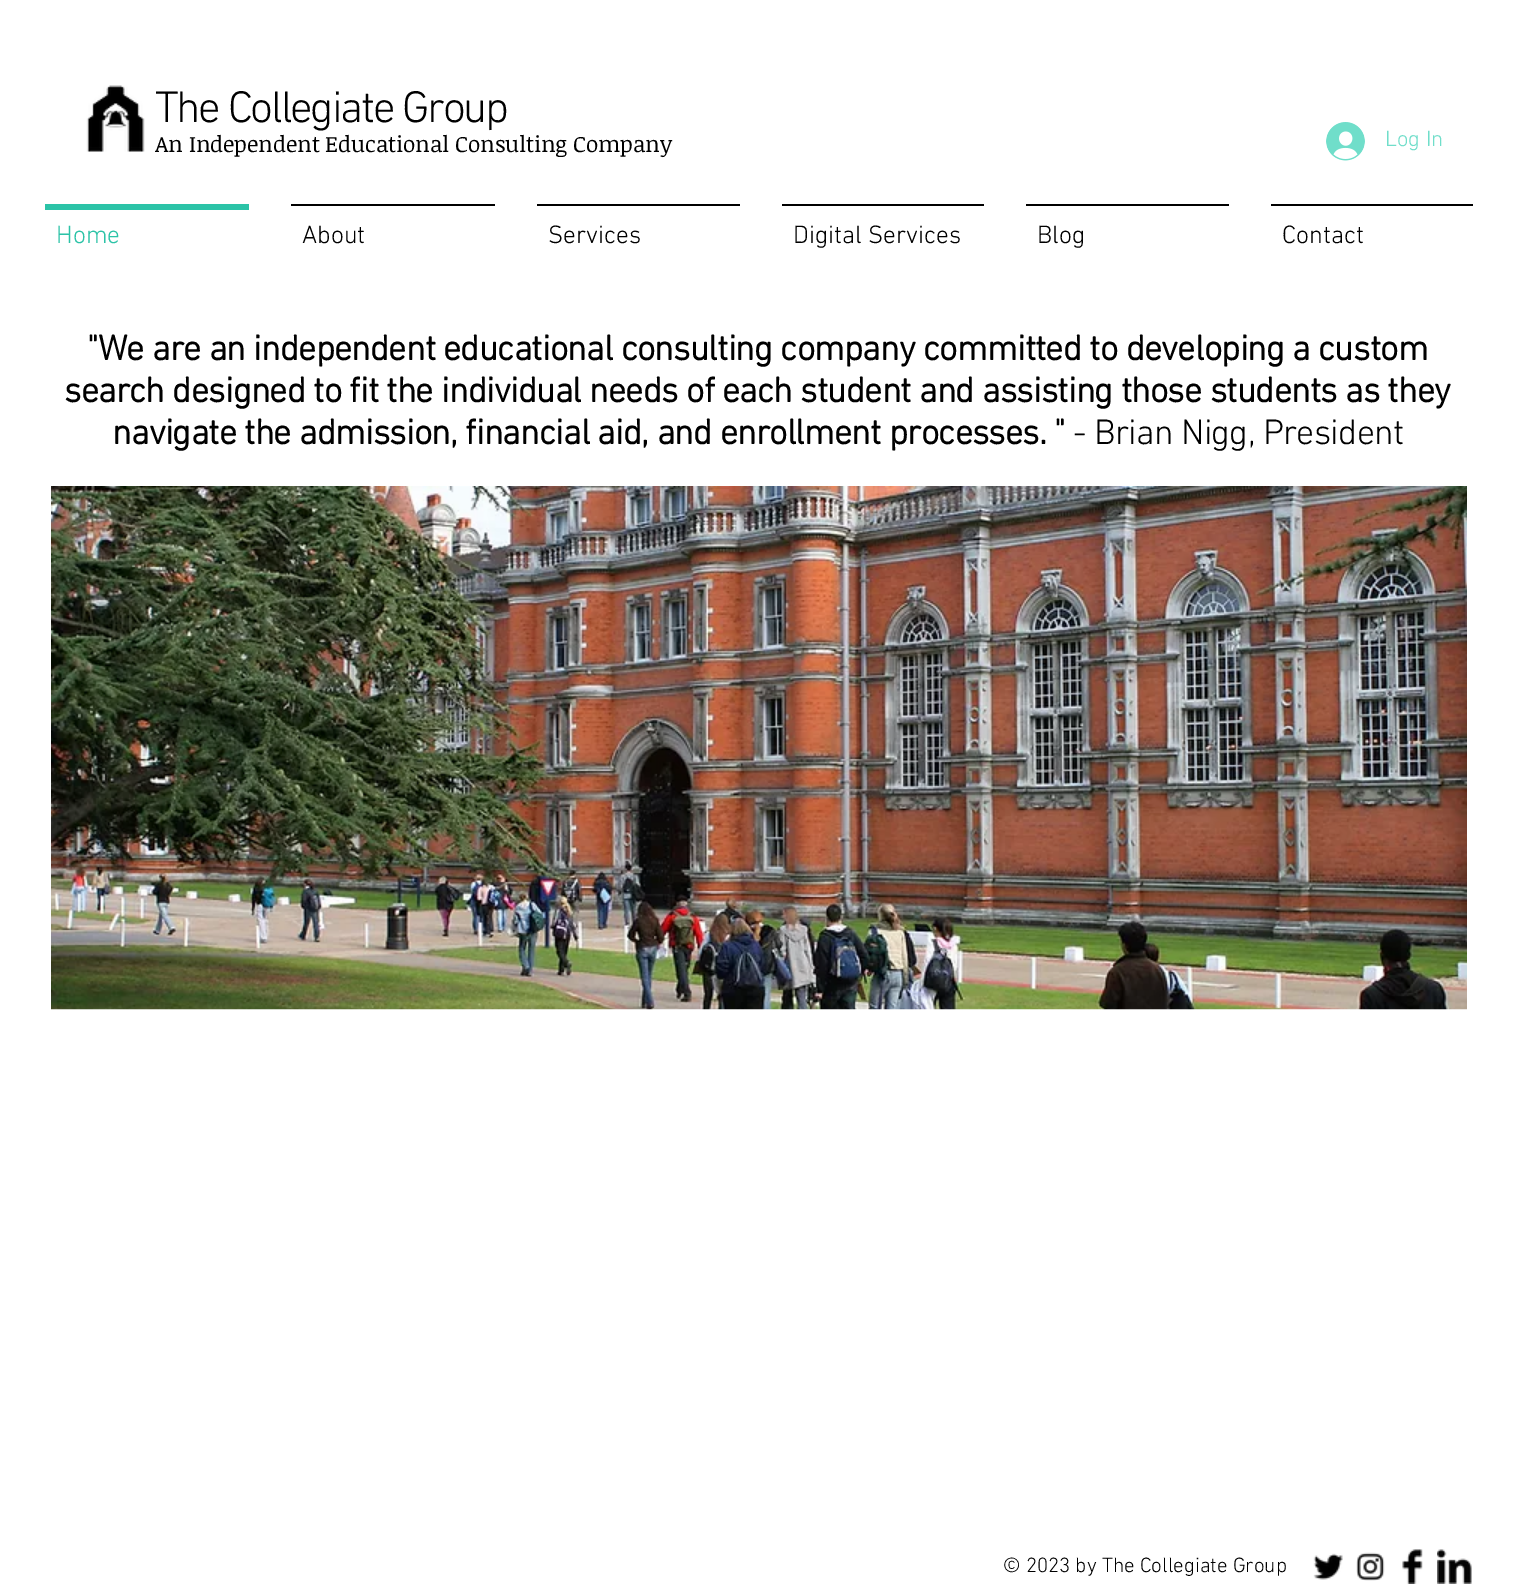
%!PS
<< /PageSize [1516 1596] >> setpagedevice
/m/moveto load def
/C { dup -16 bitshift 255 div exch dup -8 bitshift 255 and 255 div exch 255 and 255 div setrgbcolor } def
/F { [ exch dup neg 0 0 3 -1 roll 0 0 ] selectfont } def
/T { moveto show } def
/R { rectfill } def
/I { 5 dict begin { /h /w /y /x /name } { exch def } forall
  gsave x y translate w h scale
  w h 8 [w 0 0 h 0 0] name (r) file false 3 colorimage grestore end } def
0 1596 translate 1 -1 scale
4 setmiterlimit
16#FFFFFF C
0 0 1516 1596 R
(1.rgb) 86 85 59 67 I
/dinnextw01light-Light 45 F
16#000000 C
155 122 m -2.25 0 (The Collegiate Group) ashow
/NoticiaText-Regular 22.5 F
155 152 m -.15 0 (An Independent Educational Consulting Company) ashow
(2.rgb) 1326 122 39 39 I
/dinnextw01light-Light 22.5 F
16#70DECA C
(Log In) 1385 146 T
16#2BC3A7 C
45 204 204 6 R
/dinnextw01light-Light 25.5 F
(Home) 56 243 T
16#000000 C
291 204 204 2 R
(About) 302 243 T
537 204 203 2 R
(Services) 548 243 T
782 204 202 2 R
(Digital Services) 793 243 T
1026 204 203 2 R
(Blog) 1037 243 T
1271 204 202 2 R
(Contact) 1282 243 T
/dinnextw01light-Bold 36 F
87 360 m -.72 0 ("We are an independent educational consulting company committed to developing a custom) ashow
64 402 m -.72 0 (search designed to fit the individual needs of each student and assisting those students as they) ashow
112 444 m -.72 0 (navigate the admission, financial aid, and enrollment processes. ") ashow
/dinnextw01light-Light 36 F
1073 444 m -.72 0 (- Brian Nigg, President) ashow
(3.rgb) 51 486 1416 524 I
/dinnextw01light-Light 21 F
(© 2023 by The Collegiate Group) 1003 1572 T
(4.rgb) 1313 1553 30 27 I
(5.rgb) 1356 1552 29 29 I
(6.rgb) 1402 1549 21 35 I
(7.rgb) 1437 1549 35 35 I
showpage
